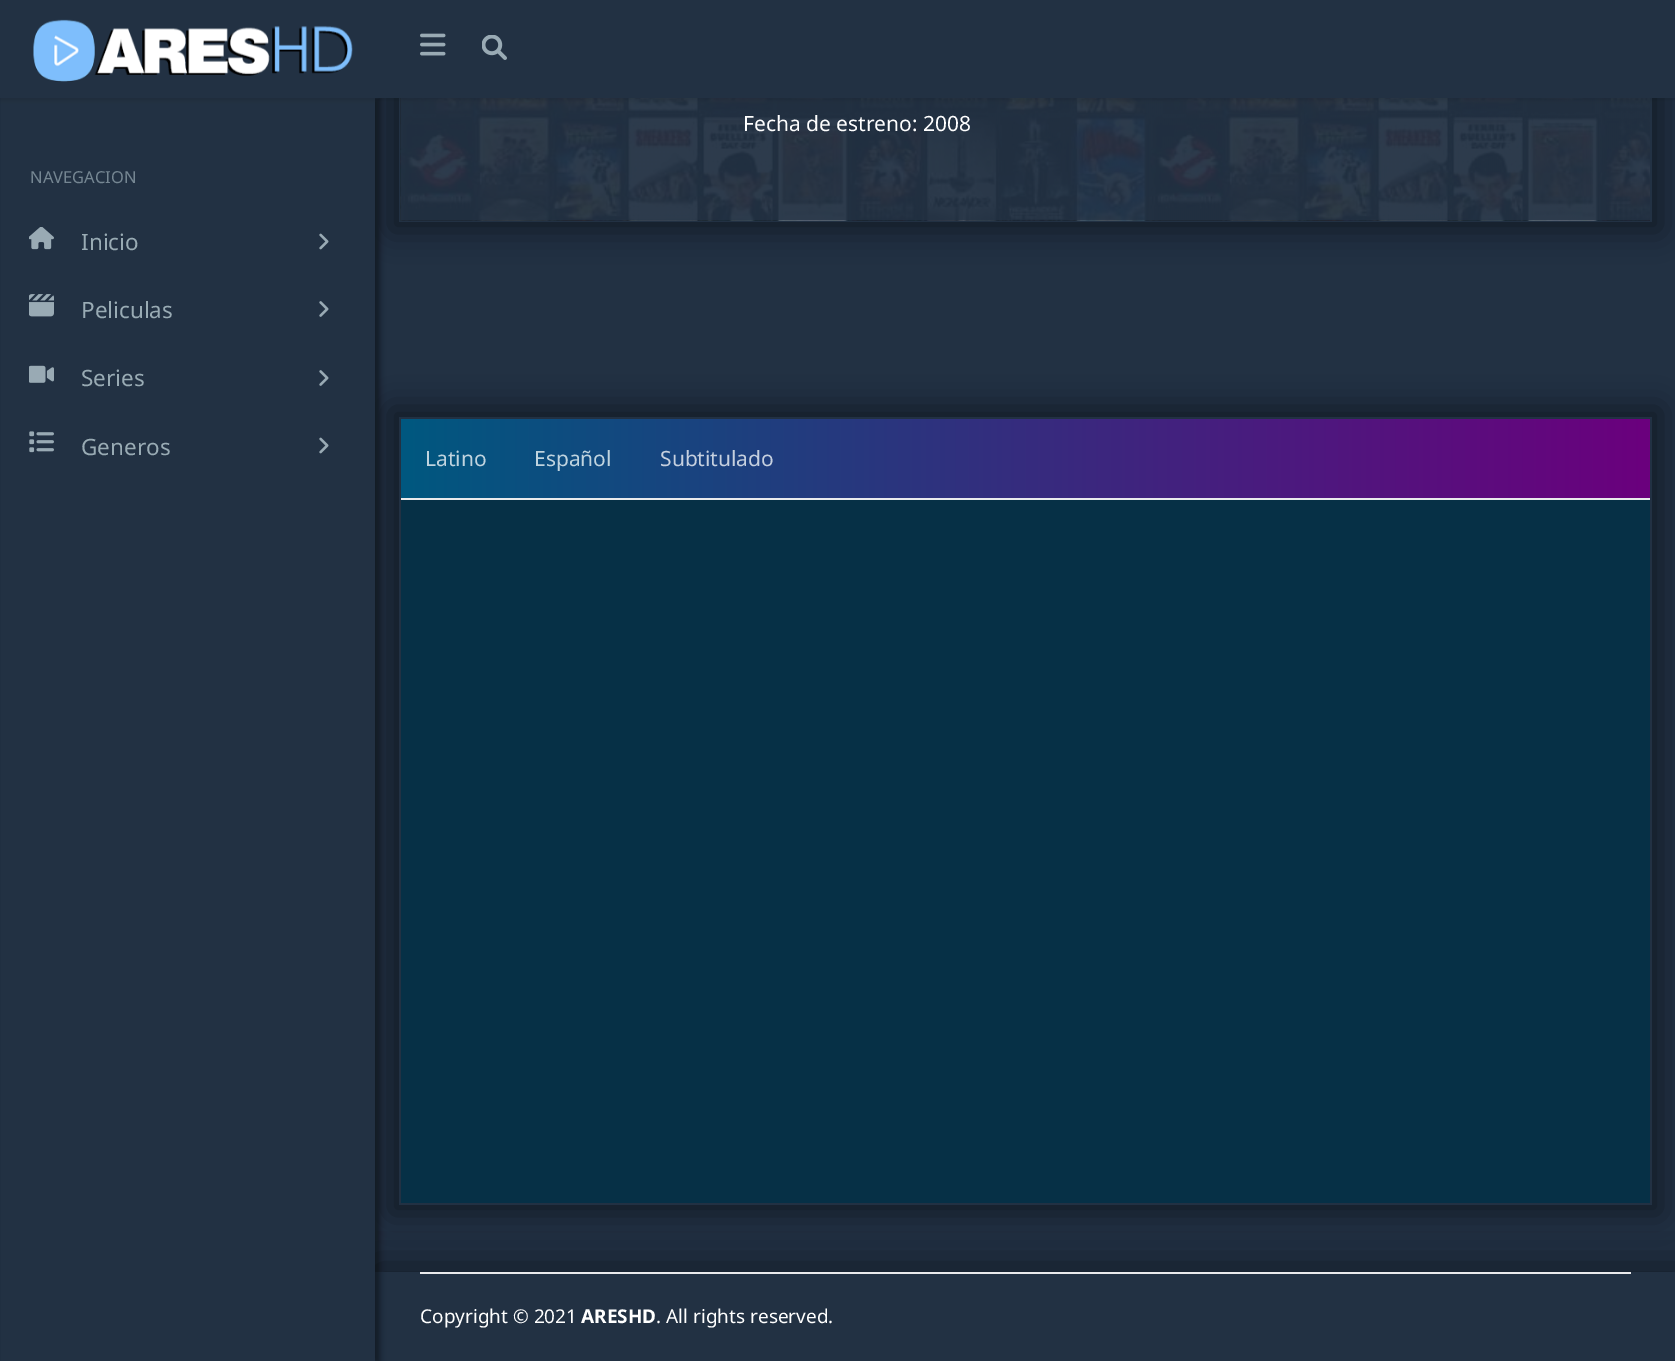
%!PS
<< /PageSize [1675 1361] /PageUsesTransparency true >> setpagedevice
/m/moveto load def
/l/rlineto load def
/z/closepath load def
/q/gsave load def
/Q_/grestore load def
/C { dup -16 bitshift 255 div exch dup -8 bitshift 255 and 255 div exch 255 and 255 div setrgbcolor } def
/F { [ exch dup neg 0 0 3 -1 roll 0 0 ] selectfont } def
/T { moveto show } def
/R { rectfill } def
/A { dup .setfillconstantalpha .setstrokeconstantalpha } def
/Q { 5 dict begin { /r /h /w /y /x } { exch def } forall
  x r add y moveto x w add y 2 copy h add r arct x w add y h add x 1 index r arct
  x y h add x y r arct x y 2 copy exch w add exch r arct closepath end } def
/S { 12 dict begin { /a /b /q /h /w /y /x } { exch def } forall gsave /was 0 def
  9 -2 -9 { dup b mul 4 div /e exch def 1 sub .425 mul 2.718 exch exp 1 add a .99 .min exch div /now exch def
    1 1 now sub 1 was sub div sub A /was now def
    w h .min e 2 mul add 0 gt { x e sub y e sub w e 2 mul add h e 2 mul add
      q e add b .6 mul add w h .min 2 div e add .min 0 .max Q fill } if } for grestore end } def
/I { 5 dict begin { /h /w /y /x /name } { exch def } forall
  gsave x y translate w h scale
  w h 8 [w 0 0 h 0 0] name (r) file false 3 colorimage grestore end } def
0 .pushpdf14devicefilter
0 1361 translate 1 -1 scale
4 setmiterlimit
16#223143 C
0 0 1675 1361 R
16#000000 C
5 98 375 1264 0 3 .43 S
390 -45 1271 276 0 15 .43 S
390 408 1271 806 0 15 .43 S
q
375 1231 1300 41 rectclip
374 1266 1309 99 0 21 .43 S
Q_
16#223143 C
1 98 374 1263 R
399 98 1253 124 R
(10.rgb) 400 98 1250 123 I
16#000000 C
0 2 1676 97 0 3 .16 S
16#223143 C
0 0 1675 98 R
(1.rgb) 33 19 320 63 I
(2.rgb) 420 33 26 23 I
(3.rgb) 482 35 25 25 I
/NotoSans-Regular 16.5 F
16#758692 C
(NAVEGACION) 30 183 T
(4.rgb) 29 227 25 23 I
/NotoSans-Regular 22.5 F
16#99ABB4 C
(Inicio) 81 250 T
(5.rgb) 319 233 10 17 I
(6.rgb) 29 294 25 23 I
(Peliculas) 81 318 T
(7.rgb) 319 301 10 16 I
(8.rgb) 29 365 25 18 I
(Series) 81 386 T
(7.rgb) 319 370 10 16 I
(9.rgb) 29 431 25 22 I
(Generos) 81 455 T
(5.rgb) 319 437 10 17 I
/NotoSans-Regular 21 F
16#FFFFFF C
(Fecha de estreno: 2008) 743 131 T
16#223143 C
399 417 1253 788 R
q 401 419 m 1249 0 l 0 79 l -1249 0 l z clip newpath
<< /ShadingType 2 /ColorSpace /DeviceRGB /Coords [401 459 1650 459] /Extend [true true] /Function << /FunctionType 2 /Domain [0 1] /C0 [0 .345 .502] /C1 [.42 0 .49] /N 1 >> >> shfill Q_
16#E9EAEC C
401 498 1249 2 R
16#C0D4DF C
(Latino) 425 466 T
(Español) 534 466 T
16#C6D0DF C
(Subtitulado) 660 466 T
16#063046 C
401 500 1249 703 R
16#E9EAEC C
420 1272 1211 2 R
/NotoSans-Regular 19 F
16#FFFFFF C
(Copyright © 2021) 420 1323 T
/NotoSans-Bold 19 F
(ARESHD) 581 1323 T
/NotoSans-Regular 19 F
(. All rights reserved.) 656 1323 T
.poppdf14devicefilter showpage
